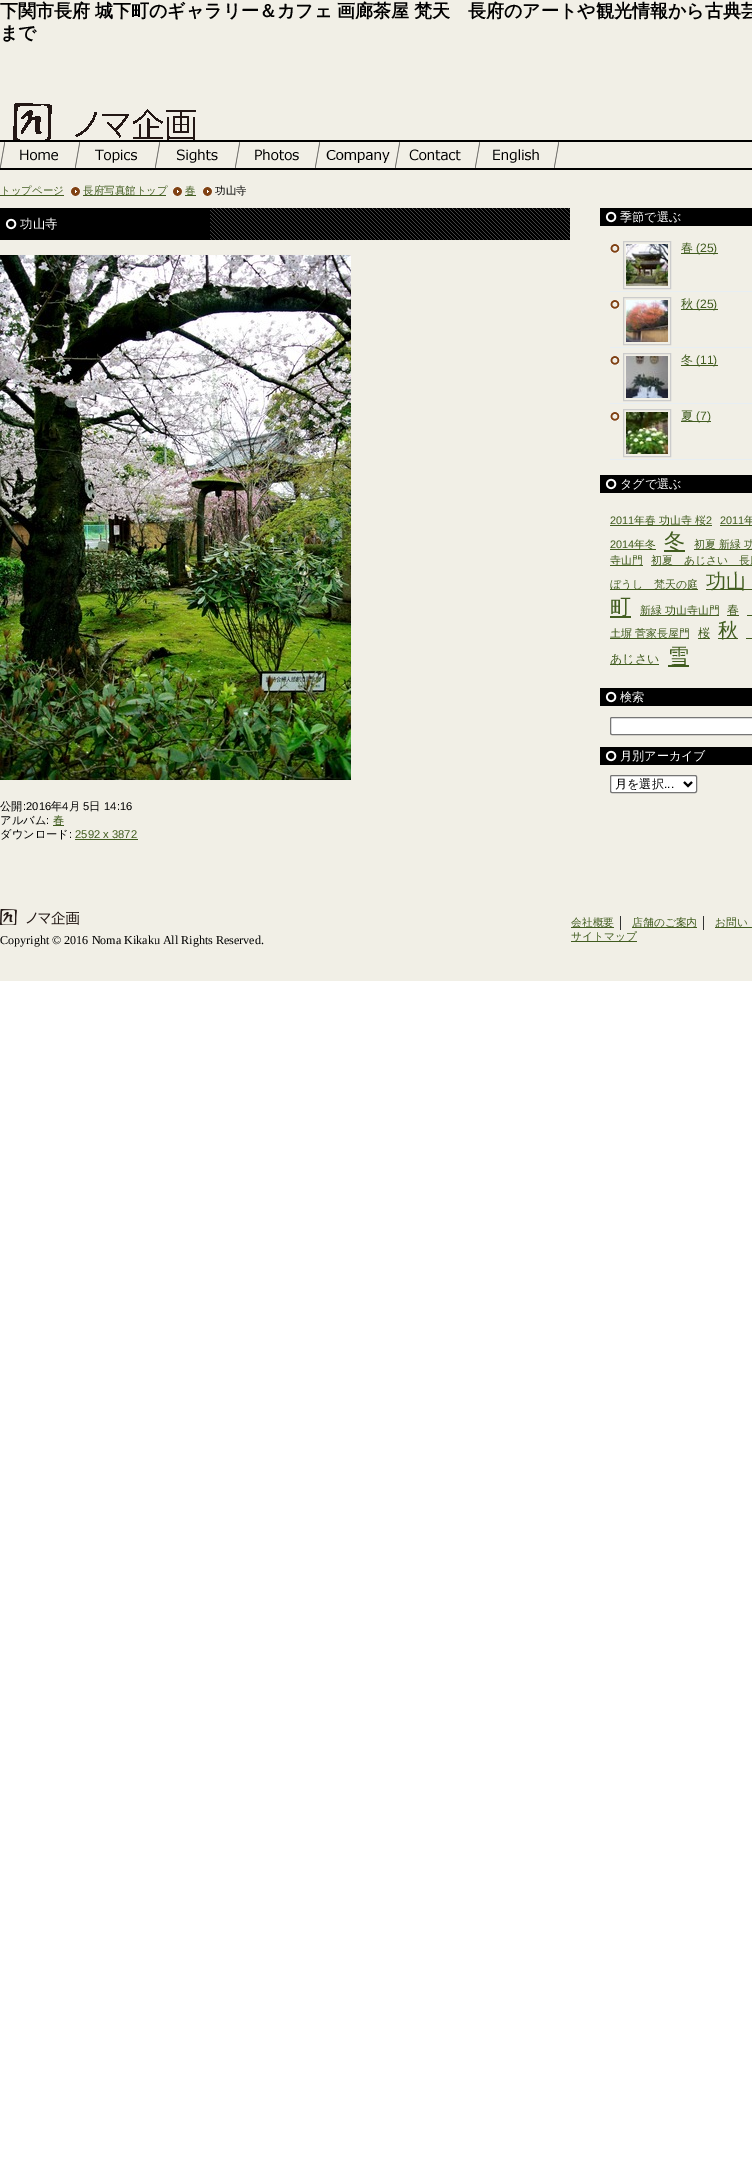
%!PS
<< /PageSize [752 2168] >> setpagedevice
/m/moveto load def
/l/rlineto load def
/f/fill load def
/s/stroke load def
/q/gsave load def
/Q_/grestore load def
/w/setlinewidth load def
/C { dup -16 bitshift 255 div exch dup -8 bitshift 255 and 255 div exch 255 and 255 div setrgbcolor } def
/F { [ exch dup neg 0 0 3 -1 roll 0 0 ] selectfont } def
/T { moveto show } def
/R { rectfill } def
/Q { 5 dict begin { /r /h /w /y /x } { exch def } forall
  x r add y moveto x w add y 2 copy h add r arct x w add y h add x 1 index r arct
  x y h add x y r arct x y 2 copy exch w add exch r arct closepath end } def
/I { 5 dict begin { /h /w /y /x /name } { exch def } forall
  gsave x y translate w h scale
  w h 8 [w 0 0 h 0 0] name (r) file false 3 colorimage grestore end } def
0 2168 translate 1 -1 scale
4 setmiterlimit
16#FFFFFF C
0 0 752 2168 R
16#F1EFE6 C
0 0 752 981 R
/WenQuanYiZenHei-Bold 18 F
16#000000 C
0 17 m -.5 0 32 (下関市長府 城下町のギャラリー＆カフェ 画廊茶屋 梵天　長府のアートや観光情報から古典芸) widthshow
(まで) 0 39 T
(1.rgb) 13 103 183 37 I
0 140 752 2 R
0 168 752 2 R
(2.rgb) 0 142 80 26 I
(3.rgb) 95 142 65 26 I
(4.rgb) 177 142 63 26 I
(5.rgb) 255 142 65 26 I
(6.rgb) 326 142 74 26 I
(7.rgb) 409 142 71 26 I
(8.rgb) 493 142 66 26 I
16#415C1F C
0 195 64 1 R
/WenQuanYiZenHei-Medium 10.5 F
(トップページ) 0 194 T
(9.rgb) 71 187 9 9 I
83 195 83 1 R
(長府写真館トップ) 83 194 T
(9.rgb) 173 187 9 9 I
185 195 11 1 R
(春) 185 194 T
(9.rgb) 203 187 9 9 I
16#000000 C
(功山寺) 215 194 T
(10.rgb) 210 208 360 32 I
0 208 210 32 R
(11.rgb) 5 218 12 12 I
/WenQuanYiZenHei-Medium 12.5 F
16#FFFFFF C
(功山寺) 20 228 T
(12.rgb) 0 255 351 525 I
/WenQuanYiZenHei-Medium 11.25 F
16#000000 C
(公開) 0 810 T
/LiberationSans-Regular 11.25 F
(:2016) 23 810 T
/WenQuanYiZenHei-Medium 11.25 F
(年) 51 810 T
/LiberationSans-Regular 11.25 F
(4) 62 810 T
/WenQuanYiZenHei-Medium 11.25 F
(月) 69 810 T
/LiberationSans-Regular 11.25 F
(5) 83 810 T
/WenQuanYiZenHei-Medium 11.25 F
(日) 89 810 T
/LiberationSans-Regular 11.25 F
(14:16) 104 810 T
/WenQuanYiZenHei-Medium 11.25 F
(アルバム) 0 824 T
/LiberationSans-Regular 11.25 F
(:) 46 824 T
16#415C1F C
53 825 11 1 R
/WenQuanYiZenHei-Medium 11.25 F
(春) 53 824 T
16#000000 C
(ダウンロード) 0 838 T
/LiberationSans-Regular 11.25 F
(:) 69 838 T
16#415C1F C
(2592 x 3872) 75 838 T
75 839 63 1 R
16#000000 C
600 208 152 18 R
(11.rgb) 605 211 12 12 I
/WenQuanYiZenHei-Medium 12.1 F
16#FFFFFF C
(季節で選ぶ) 620 221 T
(13.rgb) 610 244 10 9 I
16#E7EEF3 C
610 291 142 1 R
16#CCCCCC C
623.5 241.5 47 47 rectstroke
(14.rgb) 626 244 42 42 I
16#415C1F C
681 253 37 1 R
(春) 681 252 T
/LiberationSans-Regular 12.1 F
(\(25\)) 696 252 T
(13.rgb) 610 300 10 9 I
16#E7EEF3 C
610 347 142 1 R
16#CCCCCC C
623.5 297.5 47 47 rectstroke
(15.rgb) 626 300 42 42 I
16#415C1F C
681 309 37 1 R
/WenQuanYiZenHei-Medium 12.1 F
(秋) 681 308 T
/LiberationSans-Regular 12.1 F
(\(25\)) 696 308 T
(13.rgb) 610 356 10 9 I
16#E7EEF3 C
610 403 142 1 R
16#CCCCCC C
623.5 353.5 47 47 rectstroke
(16.rgb) 626 356 42 42 I
16#415C1F C
681 365 37 1 R
/WenQuanYiZenHei-Medium 12.1 F
(冬) 681 364 T
/LiberationSans-Regular 12.1 F
(\(11\)) 696 364 T
(13.rgb) 610 412 10 9 I
16#E7EEF3 C
610 459 142 1 R
16#CCCCCC C
623.5 409.5 47 47 rectstroke
(17.rgb) 626 412 42 42 I
16#415C1F C
681 421 30 1 R
/WenQuanYiZenHei-Medium 12.1 F
(夏) 681 420 T
/LiberationSans-Regular 12.1 F
(\(7\)) 696 420 T
16#000000 C
600 475 152 18 R
(11.rgb) 605 478 12 12 I
/WenQuanYiZenHei-Medium 12.1 F
16#FFFFFF C
(タグで選ぶ) 620 488 T
/LiberationSans-Regular 10.9 F
16#415C1F C
(2011) 610 524 T
610 525 102 1 R
/WenQuanYiZenHei-Medium 10.9 F
(年春 功山寺 桜) 634 524 T
/LiberationSans-Regular 10.9 F
(2) 706 524 T
(2011) 720 524 T
720 525 32 1 R
/WenQuanYiZenHei-Medium 10.9 F
(年) 744 524 T
/LiberationSans-Regular 10.9 F
(2014) 610 548 T
610 549 46 1 R
/WenQuanYiZenHei-Medium 10.9 F
(年冬) 634 548 T
664 550 21 2 R
/WenQuanYiZenHei-Medium 21 F
(冬) 664 548 T
694 549 58 1 R
/WenQuanYiZenHei-Medium 10.9 F
(初夏 新緑 功) 694 548 T
610 565 33 1 R
(寺山門) 610 564 T
651 565 101 1 R
(初夏　あじさい　長府) 651 564 T
610 589 88 1 R
(ぼうし　梵天の庭) 610 588 T
706 589 46 1 R
/WenQuanYiZenHei-Medium 20 F
(功山) 706 588 T
610 616 21 2 R
/WenQuanYiZenHei-Medium 21 F
(町) 610 614 T
640 615 79 1 R
/WenQuanYiZenHei-Medium 10.9 F
(新緑 功山寺山門) 640 614 T
727 615 12 1 R
/WenQuanYiZenHei-Medium 12.1 F
(春) 727 614 T
747 615 5 1 R
610 638 79 1 R
/WenQuanYiZenHei-Medium 10.9 F
(土塀 菅家長屋門) 610 637 T
698 638 12 1 R
/WenQuanYiZenHei-Medium 12.1 F
(桜) 698 637 T
718 638 20 1 R
/WenQuanYiZenHei-Medium 20 F
(秋) 718 637 T
746 638 6 1 R
610 664 49 1 R
/WenQuanYiZenHei-Medium 12.1 F
(あじさい) 610 663 T
668 665 21 2 R
/WenQuanYiZenHei-Medium 21 F
(雪) 668 663 T
16#000000 C
600 688 152 18 R
(11.rgb) 605 691 12 12 I
/WenQuanYiZenHei-Medium 12.1 F
16#FFFFFF C
(検索) 620 701 T
610.5 717.5 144 17 1.5 Q q f Q_
16#767676 C
s
16#000000 C
600 747 152 18 R
(11.rgb) 605 750 12 12 I
16#FFFFFF C
(月別アーカイブ) 620 760 T
610.5 775.5 86 17 1.5 Q q f Q_
16#767676 C
s
16#000000 C
2 w
684 782 m 4 4 l 4 -4 l s
(月を選択) 615 788 T
/LiberationSans-Regular 12.1 F
(...) 664 788 T
(18.rgb) 0 909 79 16 I
/LiberationSerif-Regular 12.1 F
(Copyright © 2016 Noma Kikaku All Rights Reserved.) 0 944 T
16#415C1F C
571 927 43 1 R
/WenQuanYiZenHei-Medium 10.75 F
(会社概要) 571 926 T
16#333333 C
620 916 1 14 R
16#415C1F C
632 927 65 1 R
(店舗のご案内) 632 926 T
16#333333 C
703 916 1 14 R
16#415C1F C
715 927 37 1 R
(お問い) 715 926 T
571 941 66 1 R
(サイトマップ) 571 940 T
showpage
